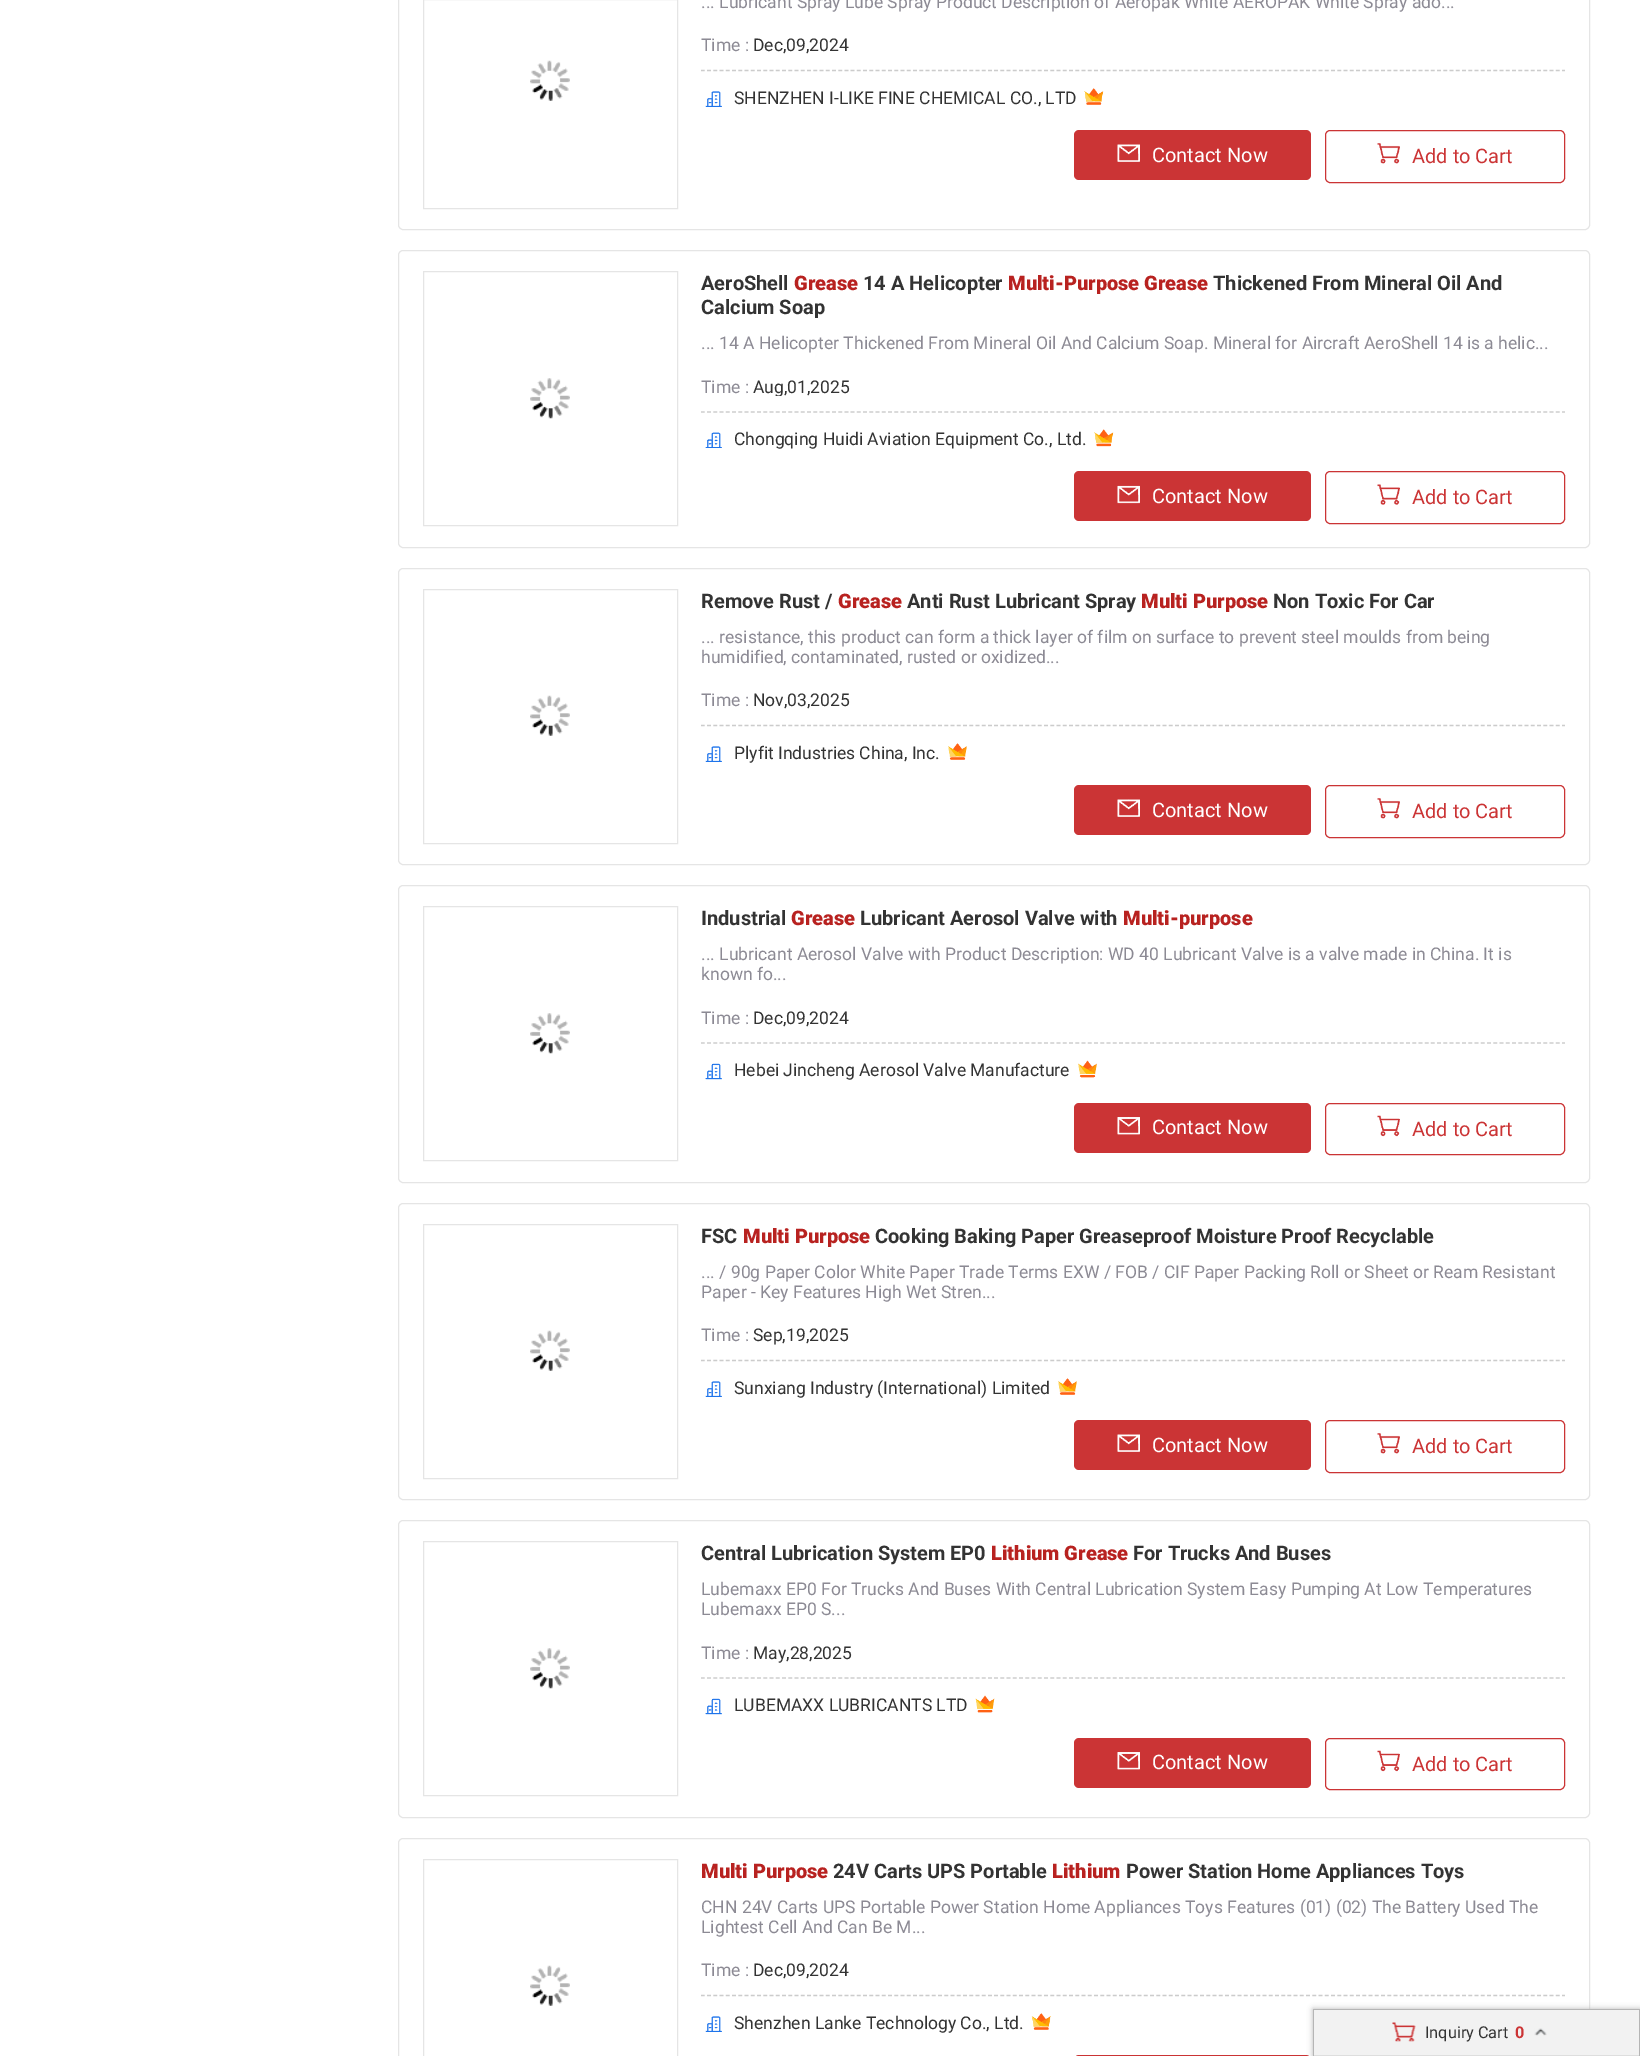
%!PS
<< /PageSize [1640 2056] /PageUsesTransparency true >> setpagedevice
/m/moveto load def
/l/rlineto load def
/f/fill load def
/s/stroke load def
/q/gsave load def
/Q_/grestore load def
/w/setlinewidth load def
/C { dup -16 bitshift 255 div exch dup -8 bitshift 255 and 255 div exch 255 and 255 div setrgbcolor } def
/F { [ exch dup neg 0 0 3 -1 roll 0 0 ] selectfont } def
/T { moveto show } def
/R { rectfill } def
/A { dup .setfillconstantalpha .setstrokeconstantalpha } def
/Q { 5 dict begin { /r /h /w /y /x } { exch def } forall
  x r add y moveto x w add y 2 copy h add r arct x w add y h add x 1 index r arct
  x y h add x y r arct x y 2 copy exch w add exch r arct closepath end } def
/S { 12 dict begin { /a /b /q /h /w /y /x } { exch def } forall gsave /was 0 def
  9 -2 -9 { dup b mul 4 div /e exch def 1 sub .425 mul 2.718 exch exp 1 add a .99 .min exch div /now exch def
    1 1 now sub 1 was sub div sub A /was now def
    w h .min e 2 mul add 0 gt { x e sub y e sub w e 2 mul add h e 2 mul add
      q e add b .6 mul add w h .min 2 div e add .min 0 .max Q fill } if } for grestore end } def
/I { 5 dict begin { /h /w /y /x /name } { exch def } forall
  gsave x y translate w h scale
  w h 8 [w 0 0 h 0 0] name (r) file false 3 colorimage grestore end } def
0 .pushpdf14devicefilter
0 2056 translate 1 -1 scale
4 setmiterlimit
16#FFFFFF C
0 0 1640 2056 R
16#E5E5E5 C
398.5 -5.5 1191 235 4.5 Q s
423.5 -.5 254 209 rectstroke
(1.rgb) 530 60 40 41 I
/Roboto-Regular 17.5 F
16#8C8A94 C
(... Lubricant Spray Lube Spray Product Description of Aeropak White AEROPAK White Spray ado...) 701 8 T
(Time :) 701 51 T
16#333333 C
(Dec,09,2024) 753 51 T
16#CCCCCC C
1.2 w
[3.75 2.49] 0 setdash
701 70.5 m 864 0 l s
(2.rgb) 705 91 17 16 I
16#333333 C
(SHENZHEN I-LIKE FINE CHEMICAL CO., LTD) 734 104 T
(3.rgb) 1084 88 20 17 I
16#CB3435 C
1074 130 237 50 5 Q f
(4.rgb) 1117 144 23 18 I
/Roboto-Regular 20 F
16#FFFFFF C
(Contact Now) 1152 162 T
16#CB3435 C
1 w
[] 0 setdash
1325.5 130.5 239 52 4.5 Q s
(5.rgb) 1377 143 23 21 I
(Add to Cart) 1412 163 T
16#E5E5E5 C
398.5 250.5 1191 297 4.5 Q s
423.5 271.5 254 254 rectstroke
(6.rgb) 530 378 40 41 I
/Roboto-Bold 20 F
16#333333 C
(AeroShell) 701 290 T
/Roboto-Black 20 F
16#B82220 C
(Grease) 794 290 T
/Roboto-Bold 20 F
16#333333 C
(14 A Helicopter) 863 290 T
/Roboto-Black 20 F
16#B82220 C
(Multi-Purpose Grease) 1008 290 T
/Roboto-Bold 20 F
16#333333 C
(Thickened From Mineral Oil And) 1213 290 T
(Calcium Soap) 701 314 T
/Roboto-Regular 17.5 F
16#8C8A94 C
(... 14 A Helicopter Thickened From Mineral Oil And Calcium Soap. Mineral for Aircraft AeroShell 14 is a helic...) 701 349 T
(Time :) 701 393 T
q
701 376 315 20 rectclip
16#333333 C
(Aug,01,2025) 753 393 T
Q_
16#CCCCCC C
1.2 w
[3.75 2.49] 0 setdash
701 412 m 864 0 l s
(7.rgb) 705 432 17 16 I
16#333333 C
(Chongqing Huidi Aviation Equipment Co., Ltd.) 734 445 T
(8.rgb) 1094 429 20 18 I
16#CB3435 C
1074 471 237 50 5 Q f
(9.rgb) 1117 485 23 19 I
/Roboto-Regular 20 F
16#FFFFFF C
(Contact Now) 1152 503 T
16#CB3435 C
1 w
[] 0 setdash
1325.5 471.5 239 52 4.5 Q s
(10.rgb) 1377 484 23 21 I
(Add to Cart) 1412 504 T
16#E5E5E5 C
398.5 568.5 1191 296 4.5 Q s
423.5 589.5 254 254 rectstroke
(1.rgb) 530 695 40 41 I
/Roboto-Bold 20 F
16#333333 C
(Remove Rust /) 701 608 T
/Roboto-Black 20 F
16#B82220 C
(Grease) 838 608 T
/Roboto-Bold 20 F
16#333333 C
(Anti Rust Lubricant Spray) 907 608 T
/Roboto-Black 20 F
16#B82220 C
(Multi Purpose) 1141 608 T
/Roboto-Bold 20 F
16#333333 C
(Non Toxic For Car) 1273 608 T
/Roboto-Regular 17.5 F
16#8C8A94 C
(... resistance, this product can form a thick layer of film on surface to prevent steel moulds from being) 701 643 T
(humidified, contaminated, rusted or oxidized...) 701 663 T
(Time :) 701 706 T
16#333333 C
(Nov,03,2025) 753 706 T
16#CCCCCC C
1.2 w
[3.75 2.49] 0 setdash
701 725.5 m 864 0 l s
(2.rgb) 705 746 17 16 I
16#333333 C
(Plyfit Industries China, Inc.) 734 759 T
(11.rgb) 948 743 19 17 I
16#CB3435 C
1074 785 237 50 5 Q f
(4.rgb) 1117 799 23 18 I
/Roboto-Regular 20 F
16#FFFFFF C
(Contact Now) 1152 817 T
16#CB3435 C
1 w
[] 0 setdash
1325.5 785.5 239 52 4.5 Q s
(5.rgb) 1377 798 23 21 I
(Add to Cart) 1412 818 T
16#E5E5E5 C
398.5 885.5 1191 297 4.5 Q s
423.5 906.5 254 254 rectstroke
(6.rgb) 530 1013 40 41 I
/Roboto-Bold 20 F
16#333333 C
(Industrial) 701 925 T
/Roboto-Black 20 F
16#B82220 C
(Grease) 791 925 T
/Roboto-Bold 20 F
16#333333 C
(Lubricant Aerosol Valve with) 860 925 T
/Roboto-Black 20 F
16#B82220 C
(Multi-purpose) 1123 925 T
/Roboto-Regular 17.5 F
16#8C8A94 C
(... Lubricant Aerosol Valve with Product Description: WD 40 Lubricant Valve is a valve made in China. It is) 701 960 T
(known fo...) 701 980 T
(Time :) 701 1024 T
16#333333 C
(Dec,09,2024) 753 1024 T
16#CCCCCC C
1.2 w
[3.75 2.49] 0 setdash
701 1043 m 864 0 l s
(12.rgb) 705 1063 17 17 I
16#333333 C
(Hebei Jincheng Aerosol Valve Manufacture) 734 1076 T
(13.rgb) 1078 1060 19 18 I
16#CB3435 C
1074 1103 237 50 5 Q f
(14.rgb) 1117 1117 23 18 I
/Roboto-Regular 20 F
16#FFFFFF C
(Contact Now) 1152 1134 T
16#CB3435 C
1 w
[] 0 setdash
1325.5 1103.5 239 51 4.5 Q s
(15.rgb) 1377 1115 23 22 I
(Add to Cart) 1412 1136 T
16#E5E5E5 C
398.5 1203.5 1191 296 4.5 Q s
423.5 1224.5 254 254 rectstroke
(1.rgb) 530 1330 40 41 I
/Roboto-Bold 20 F
16#333333 C
(FSC) 701 1243 T
/Roboto-Black 20 F
16#B82220 C
(Multi Purpose) 743 1243 T
/Roboto-Bold 20 F
16#333333 C
(Cooking Baking Paper Greaseproof Moisture Proof Recyclable) 875 1243 T
/Roboto-Regular 17.5 F
16#8C8A94 C
(... / 90g Paper Color White Paper Trade Terms EXW / FOB / CIF Paper Packing Roll or Sheet or Ream Resistant) 701 1278 T
(Paper - Key Features High Wet Stren...) 701 1298 T
(Time :) 701 1341 T
16#333333 C
(Sep,19,2025) 753 1341 T
16#CCCCCC C
1.2 w
[3.75 2.49] 0 setdash
701 1360.5 m 864 0 l s
(2.rgb) 705 1381 17 16 I
16#333333 C
(Sunxiang Industry \(International\) Limited) 734 1394 T
(11.rgb) 1058 1378 19 17 I
16#CB3435 C
1074 1420 237 50 5 Q f
(4.rgb) 1117 1434 23 18 I
/Roboto-Regular 20 F
16#FFFFFF C
(Contact Now) 1152 1452 T
16#CB3435 C
1 w
[] 0 setdash
1325.5 1420.5 239 52 4.5 Q s
(5.rgb) 1377 1433 23 21 I
(Add to Cart) 1412 1453 T
16#E5E5E5 C
398.5 1520.5 1191 297 4.5 Q s
423.5 1541.5 254 254 rectstroke
(6.rgb) 530 1648 40 41 I
/Roboto-Bold 20 F
16#333333 C
(Central Lubrication System EP0) 701 1560 T
/Roboto-Black 20 F
16#B82220 C
(Lithium Grease) 991 1560 T
/Roboto-Bold 20 F
16#333333 C
(For Trucks And Buses) 1133 1560 T
/Roboto-Regular 17.5 F
16#8C8A94 C
(Lubemaxx EP0 For Trucks And Buses With Central Lubrication System Easy Pumping At Low Temperatures) 701 1595 T
(Lubemaxx EP0 S...) 701 1615 T
(Time :) 701 1659 T
16#333333 C
(May,28,2025) 753 1659 T
16#CCCCCC C
1.2 w
[3.75 2.49] 0 setdash
701 1678 m 864 0 l s
(12.rgb) 705 1698 17 17 I
16#333333 C
(LUBEMAXX LUBRICANTS LTD) 734 1711 T
(16.rgb) 975 1695 20 18 I
16#CB3435 C
1074 1738 237 50 5 Q f
(14.rgb) 1117 1752 23 18 I
/Roboto-Regular 20 F
16#FFFFFF C
(Contact Now) 1152 1769 T
16#CB3435 C
1 w
[] 0 setdash
1325.5 1738.5 239 51 4.5 Q s
(15.rgb) 1377 1750 23 22 I
(Add to Cart) 1412 1771 T
16#E5E5E5 C
398.5 1838.5 1191 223 4.5 Q s
423.5 1859.5 254 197 rectstroke
(1.rgb) 530 1965 40 41 I
/Roboto-Black 20 F
16#B82220 C
(Multi Purpose) 701 1878 T
/Roboto-Bold 20 F
16#333333 C
(24V Carts UPS Portable) 833 1878 T
/Roboto-Black 20 F
16#B82220 C
(Lithium) 1052 1878 T
/Roboto-Bold 20 F
16#333333 C
(Power Station Home Appliances Toys) 1126 1878 T
/Roboto-Regular 17.5 F
16#8C8A94 C
(CHN 24V Carts UPS Portable Power Station Home Appliances Toys Features \(01\) \(02\) The Battery Used The) 701 1913 T
(Lightest Cell And Can Be M...) 701 1933 T
(Time :) 701 1976 T
16#333333 C
(Dec,09,2024) 753 1976 T
16#CCCCCC C
1.2 w
[3.75 2.49] 0 setdash
701 1995.5 m 864 0 l s
(2.rgb) 705 2016 17 16 I
16#333333 C
(Shenzhen Lanke Technology Co., Ltd.) 734 2029 T
(17.rgb) 1031 2013 20 17 I
16#CB3435 C
1074 2055 237 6 5 Q f
16#B5B5B5 C
1313 2009 327 47 0 3 1 S
1313 2009 327 1 R
1639 2009 1 47 R
1313 2009 1 47 R
16#F2F2F2 C
1314 2010 325 45 R
16#DEDEDE C
1314 2055 325 1 R
(18.rgb) 1392 2022 24 20 I
/Roboto-Regular 16.25 F
16#333333 C
(Inquiry Cart) 1425 2038 T
/Roboto-Bold 16.25 F
16#CB3435 C
(0) 1515 2038 T
(19.rgb) 1534 2028 13 8 I
.poppdf14devicefilter showpage
